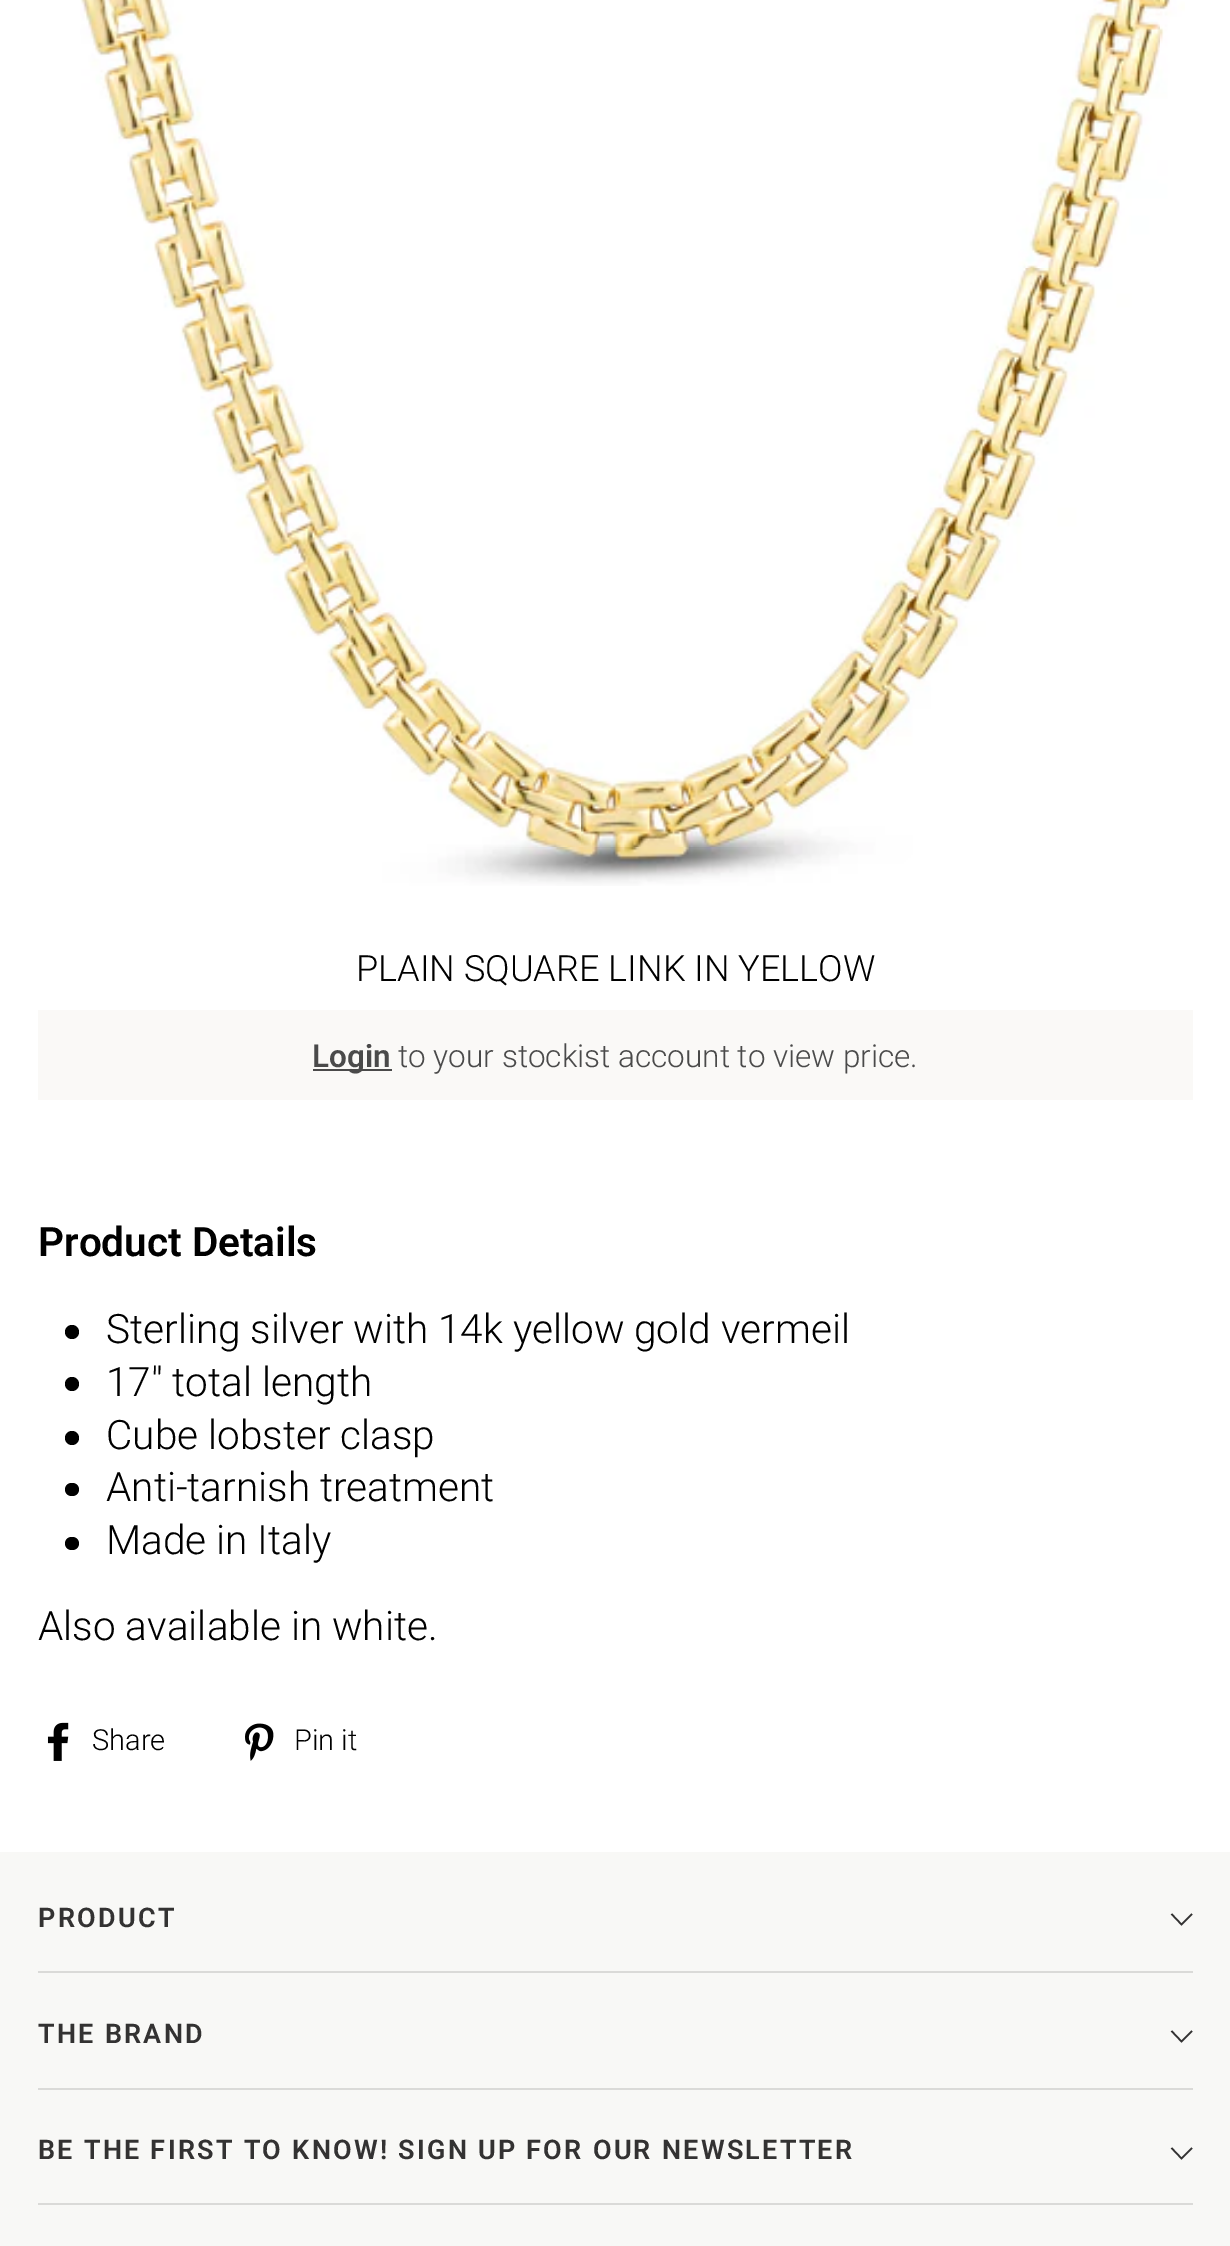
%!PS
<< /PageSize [1230 2246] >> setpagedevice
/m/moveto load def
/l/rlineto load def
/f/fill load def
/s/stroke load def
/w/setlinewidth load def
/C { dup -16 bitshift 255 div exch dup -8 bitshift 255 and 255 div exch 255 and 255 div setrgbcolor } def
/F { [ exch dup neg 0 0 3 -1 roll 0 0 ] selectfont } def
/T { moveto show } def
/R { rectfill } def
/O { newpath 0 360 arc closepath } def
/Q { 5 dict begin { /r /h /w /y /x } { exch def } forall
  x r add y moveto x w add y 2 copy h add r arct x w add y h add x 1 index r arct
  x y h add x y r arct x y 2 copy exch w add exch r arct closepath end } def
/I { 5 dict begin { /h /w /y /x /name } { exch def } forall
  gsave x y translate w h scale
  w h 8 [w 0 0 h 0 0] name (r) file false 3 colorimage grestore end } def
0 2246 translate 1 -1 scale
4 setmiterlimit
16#FFFFFF C
0 0 1230 2246 R
(1.rgb) 80 0 1105 886 I
/Roboto-Light 36.1 F
16#000000 C
(PLAIN SQUARE LINK IN YELLOW) 356 981 T
16#FAF9F7 C
38 1010 1155 90 R
16#4A4A4A C
313 1069 79 2 R
/Roboto-SemiBold 31.5 F
(Login) 312 1067 T
/Roboto-Light 31.5 F
(to your stockist account to view price.) 398 1067 T
/Roboto-SemiBold 40.5 F
16#000000 C
(Product Details) 38 1256 T
72 1332 7 O f
/Roboto-Light 40.5 F
(Sterling silver with 14k yellow gold vermeil) 106 1343 T
72 1384 7 O f
(17" total length) 106 1396 T
72 1438 7 O f
(Cube lobster clasp) 106 1449 T
65 1483 14 13 6.5 Q f
(Anti-tarnish treatment) 106 1501 T
65 1537 14 13 6.5 Q f
(Made in Italy) 106 1554 T
(Also available in white.) 38 1640 T
(2.rgb) 47 1722 22 39 I
/Roboto-Light 29 F
(Share) 92 1750 T
(3.rgb) 245 1723 29 38 I
(Pin it) 294 1750 T
16#F8F8F6 C
0 1852 1230 394 R
/Roboto-SemiBold 27 F
16#333232 C
38 1927 m 2.25 0 (PRODUCT) ashow
1.6 w
1171.5 1914 m 10 10.5 l 10.5 -10.5 l s
16#DADAD8 C
38 1971 1155 2 R
16#333232 C
38 2043 m 2.25 0 (THE BRAND) ashow
1171.5 2031 m 10 10.5 l 10.5 -10.5 l s
16#DADAD8 C
38 2088 1155 2 R
16#333232 C
38 2159 m 2.25 0 (BE THE FIRST TO KNOW! SIGN UP FOR OUR NEWSLETTER) ashow
1171.5 2148 m 10 10.5 l 10.5 -10.5 l s
16#DADAD8 C
38 2203 1155 2 R
showpage
